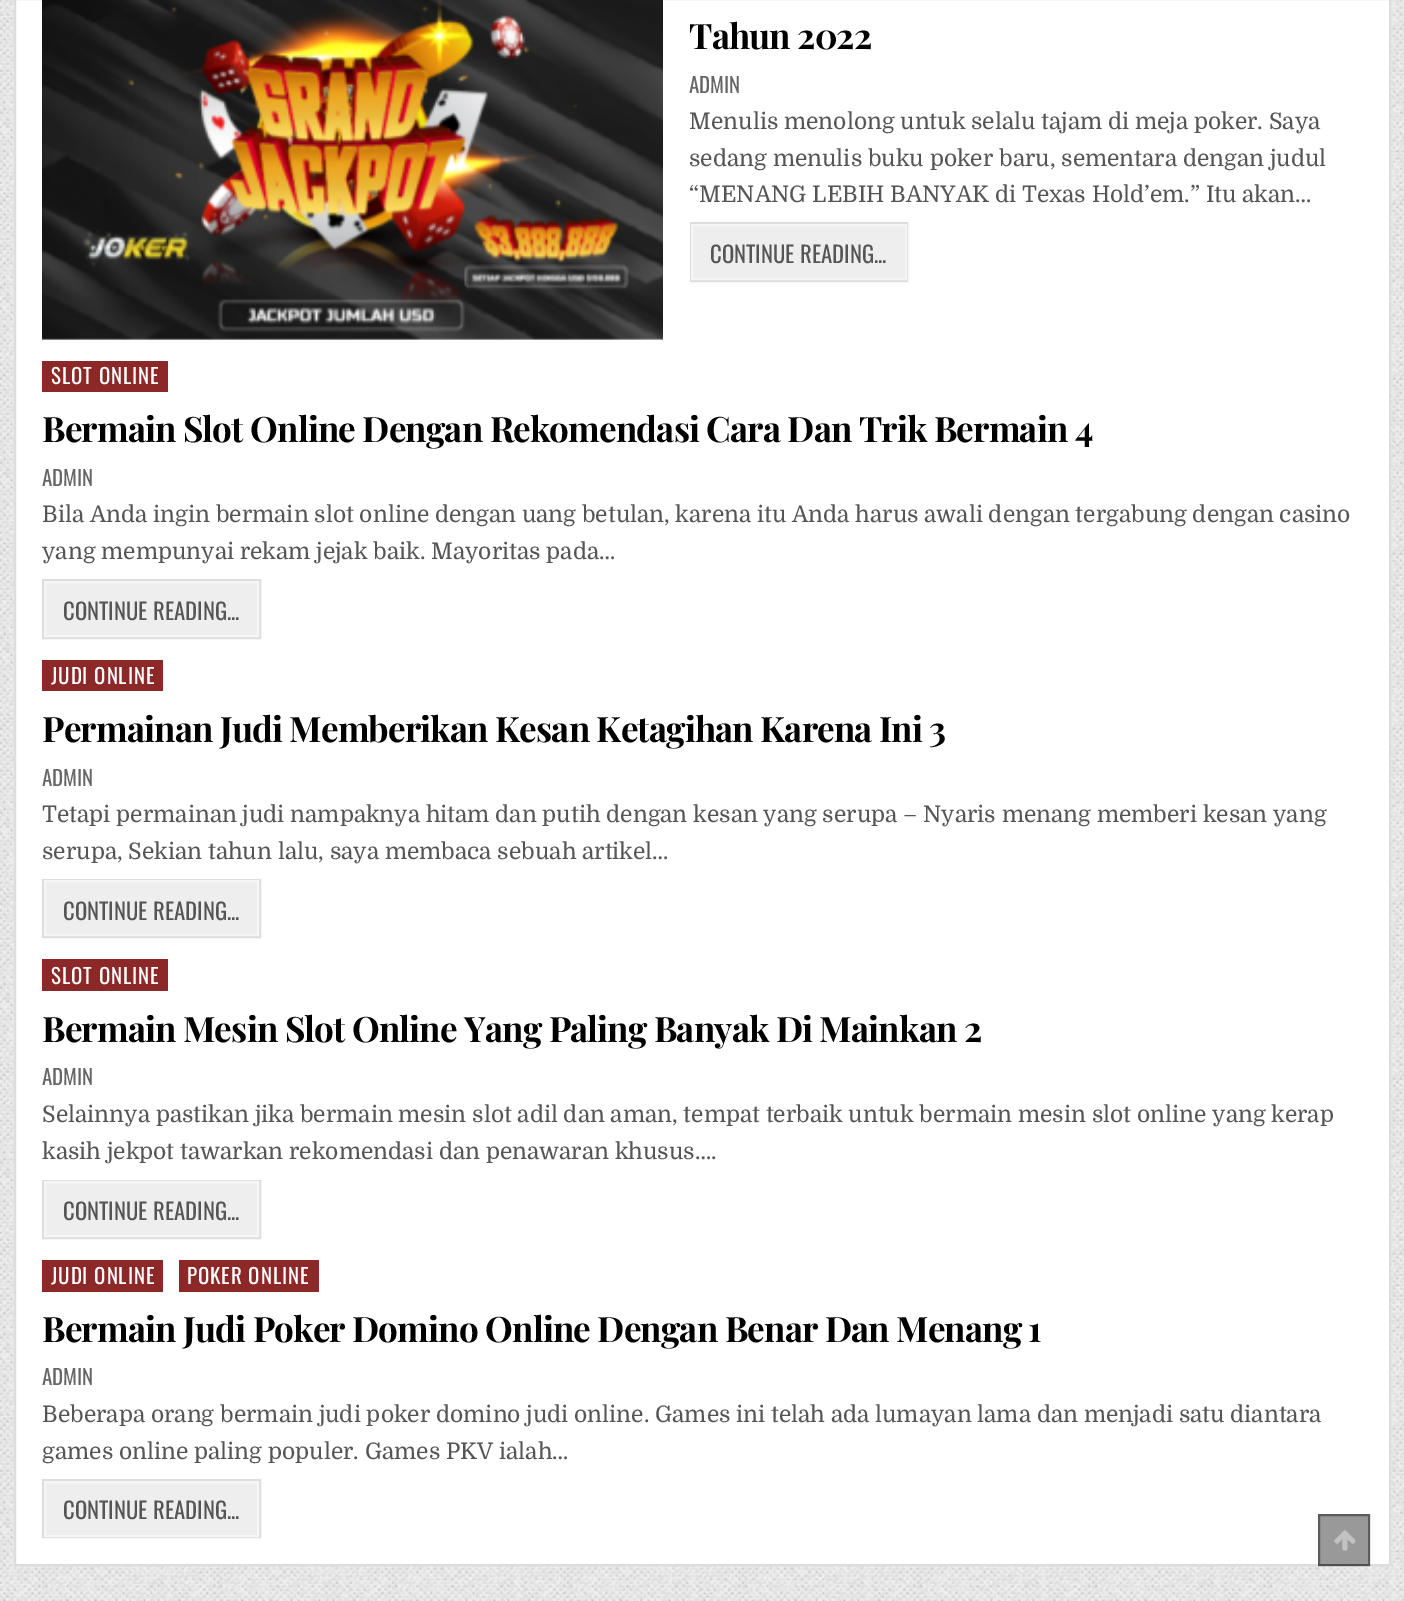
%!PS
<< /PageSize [1404 1601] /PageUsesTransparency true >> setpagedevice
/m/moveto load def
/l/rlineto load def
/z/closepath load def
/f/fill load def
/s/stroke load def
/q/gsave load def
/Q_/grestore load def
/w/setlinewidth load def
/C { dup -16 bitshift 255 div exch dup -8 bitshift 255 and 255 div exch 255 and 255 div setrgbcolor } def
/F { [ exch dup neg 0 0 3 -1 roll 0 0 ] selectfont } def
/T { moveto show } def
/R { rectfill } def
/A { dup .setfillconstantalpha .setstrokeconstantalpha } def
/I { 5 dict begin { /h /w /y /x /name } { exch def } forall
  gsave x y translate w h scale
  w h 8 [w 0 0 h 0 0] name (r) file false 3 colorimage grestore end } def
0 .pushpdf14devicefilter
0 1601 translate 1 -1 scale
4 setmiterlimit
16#FFFFFF C
0 0 1404 1601 R
(1.rgb) 0 0 1404 1601 I
15 -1 m 1375 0 l 0 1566 l -1375 0 l z q f Q_
16#DDDDDD C
2 w
s
(2.rgb) 42 0 621 340 I
/PlayfairDisplay-Bold 35 F
16#000000 C
689 49 m -.88 0 (Tahun 2022) ashow
/Oswald-Regular 21 F
16#666666 C
(ADMIN) 689 93 T
/Domine-Regular 22.75 F
16#555555 C
(Menulis menolong untuk selalu tajam di meja poker. Saya) 689 129 T
(sedang menulis buku poker baru, sementara dengan judul) 689 166 T
(“MENANG LEBIH BANYAK di Texas Hold’em.” Itu akan…) 689 202 T
16#EEEEEE C
693 226 212 52 R
16#DDDDDD C
691 223 216 58 rectstroke
16#F6F6F6 C
692 225 214 54 rectstroke
/Oswald-Regular 22.75 F
16#555555 C
(CONTINUE READING...) 710 263 T
16#8C2828 C
42 361 126 31 R
/Oswald-Regular 21 F
16#FFFFFF C
51 384 m .9 0 (SLOT ONLINE) ashow
/PlayfairDisplay-Bold 35 F
16#000000 C
42 442 m -.88 0 (Bermain Slot Online Dengan Rekomendasi Cara Dan Trik Bermain 4) ashow
/Oswald-Regular 21 F
16#666666 C
(ADMIN) 42 486 T
/Domine-Regular 22.75 F
16#555555 C
(Bila Anda ingin bermain slot online dengan uang betulan, karena itu Anda harus awali dengan tergabung dengan casino) 42 522 T
(yang mempunyai rekam jejak baik. Mayoritas pada…) 42 559 T
16#EEEEEE C
46 583 211 52 R
16#DDDDDD C
43 580 217 58 rectstroke
16#F6F6F6 C
45 582 213 54 rectstroke
/Oswald-Regular 22.75 F
16#555555 C
(CONTINUE READING...) 63 620 T
16#8C2828 C
42 660 121 31 R
/Oswald-Regular 21 F
16#FFFFFF C
51 684 m .9 0 (JUDI ONLINE) ashow
/PlayfairDisplay-Bold 35 F
16#000000 C
42 742 m -.88 0 (Permainan Judi Memberikan Kesan Ketagihan Karena Ini 3) ashow
/Oswald-Regular 21 F
16#666666 C
(ADMIN) 42 786 T
/Domine-Regular 22.75 F
16#555555 C
(Tetapi permainan judi nampaknya hitam dan putih dengan kesan yang serupa – Nyaris menang memberi kesan yang) 42 822 T
(serupa, Sekian tahun lalu, saya membaca sebuah artikel…) 42 859 T
16#EEEEEE C
46 882 211 52 R
16#DDDDDD C
43 880 217 57 rectstroke
16#F6F6F6 C
45 881 213 54 rectstroke
/Oswald-Regular 22.75 F
16#555555 C
(CONTINUE READING...) 63 920 T
16#8C2828 C
42 959 126 32 R
/Oswald-Regular 21 F
16#FFFFFF C
51 984 m .9 0 (SLOT ONLINE) ashow
/PlayfairDisplay-Bold 35 F
16#000000 C
42 1042 m -.88 0 (Bermain Mesin Slot Online Yang Paling Banyak Di Mainkan 2) ashow
/Oswald-Regular 21 F
16#666666 C
(ADMIN) 42 1085 T
/Domine-Regular 22.75 F
16#555555 C
(Selainnya pastikan jika bermain mesin slot adil dan aman, tempat terbaik untuk bermain mesin slot online yang kerap) 42 1122 T
(kasih jekpot tawarkan rekomendasi dan penawaran khusus….) 42 1159 T
16#EEEEEE C
46 1183 211 52 R
16#DDDDDD C
43 1181 217 57 rectstroke
16#F6F6F6 C
45 1182 213 54 rectstroke
/Oswald-Regular 22.75 F
16#555555 C
(CONTINUE READING...) 63 1220 T
16#8C2828 C
42 1260 121 32 R
/Oswald-Regular 21 F
16#FFFFFF C
51 1284 m .9 0 (JUDI ONLINE) ashow
16#8C2828 C
179 1260 140 32 R
16#FFFFFF C
187 1284 m .9 0 (POKER ONLINE) ashow
/PlayfairDisplay-Bold 35 F
16#000000 C
42 1342 m -.88 0 (Bermain Judi Poker Domino Online Dengan Benar Dan Menang 1) ashow
/Oswald-Regular 21 F
16#666666 C
(ADMIN) 42 1385 T
/Domine-Regular 22.75 F
16#555555 C
(Beberapa orang bermain judi poker domino judi online. Games ini telah ada lumayan lama dan menjadi satu diantara) 42 1422 T
(games online paling populer. Games PKV ialah…) 42 1459 T
16#EEEEEE C
46 1483 211 52 R
16#DDDDDD C
43 1480 217 57 rectstroke
16#F6F6F6 C
45 1482 213 54 rectstroke
/Oswald-Regular 22.75 F
16#555555 C
(CONTINUE READING...) 63 1519 T
0.4 A
16#000000 C
1318 1514 52 52 R
1319 1515 50 50 rectstroke
1 A
(3.rgb) 1334 1530 22 21 I
.poppdf14devicefilter showpage
